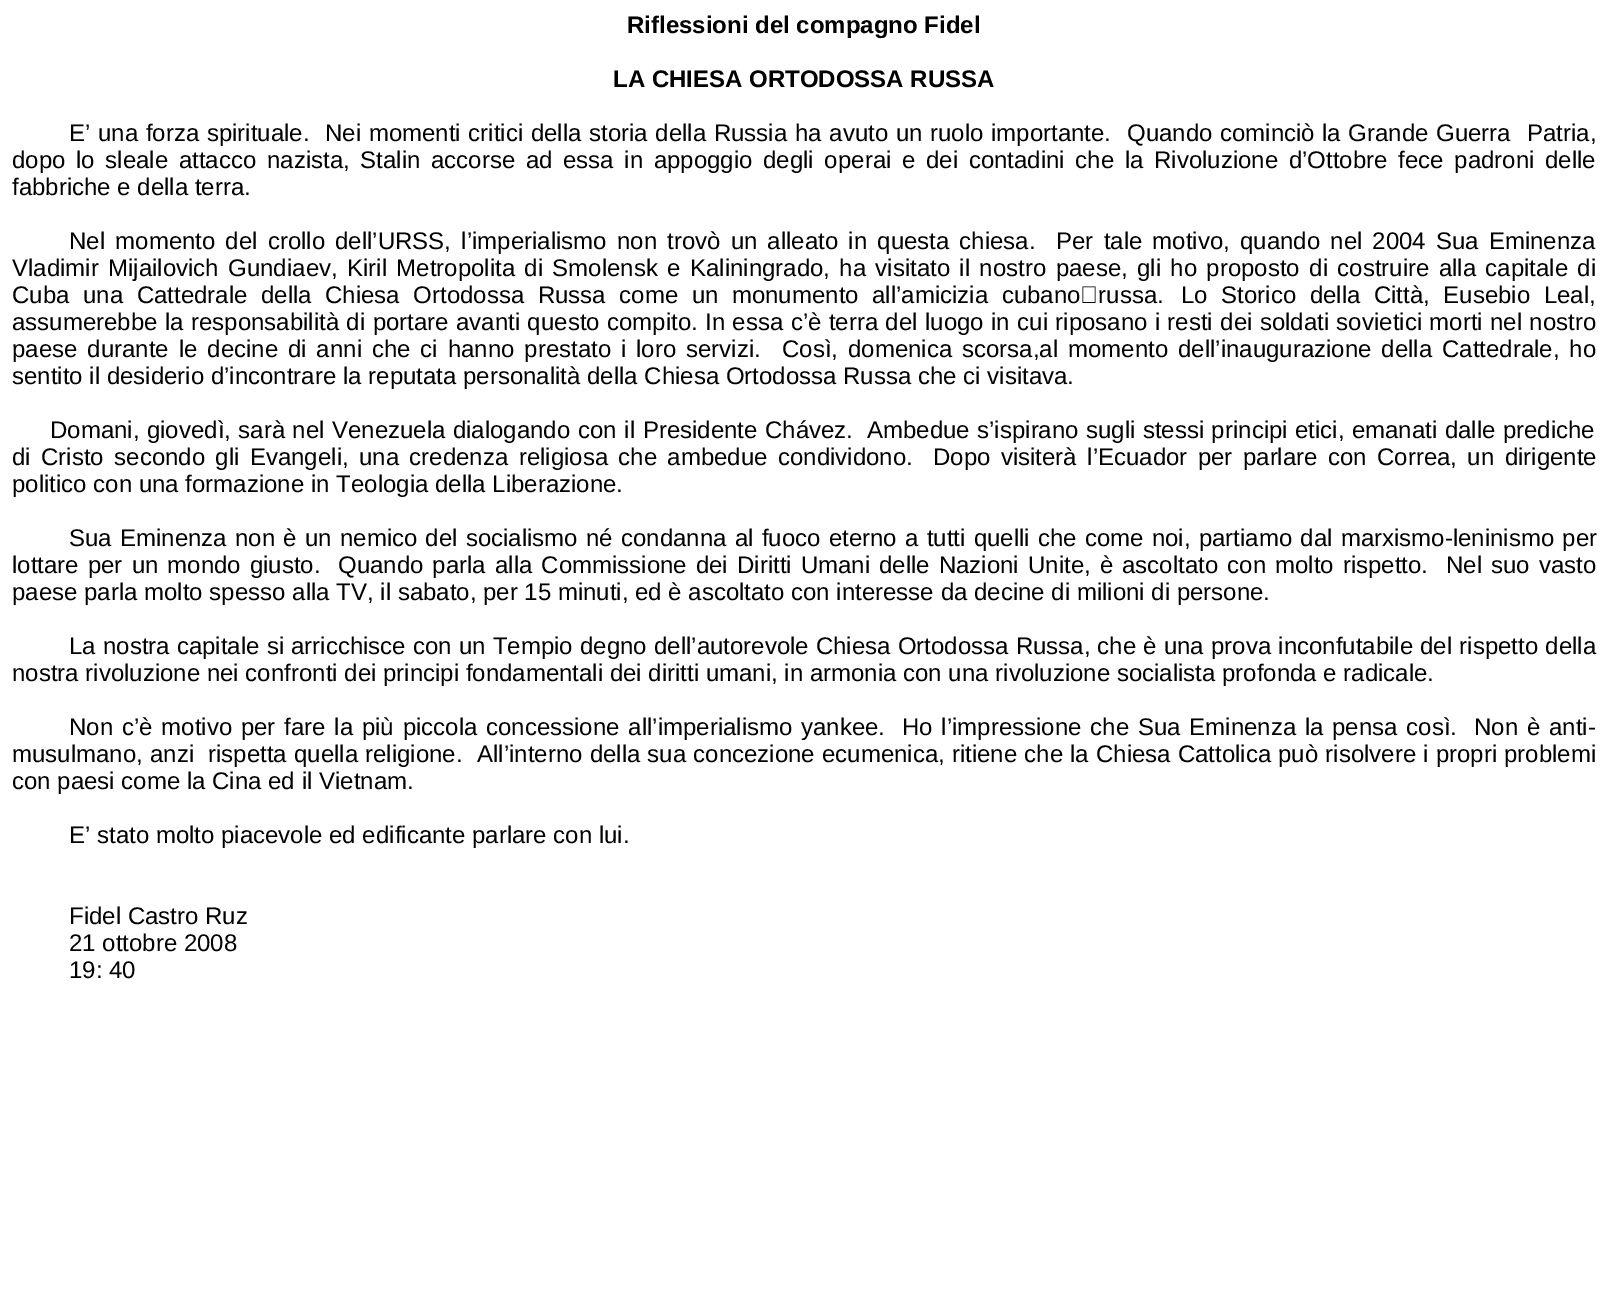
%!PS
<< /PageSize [1607 1303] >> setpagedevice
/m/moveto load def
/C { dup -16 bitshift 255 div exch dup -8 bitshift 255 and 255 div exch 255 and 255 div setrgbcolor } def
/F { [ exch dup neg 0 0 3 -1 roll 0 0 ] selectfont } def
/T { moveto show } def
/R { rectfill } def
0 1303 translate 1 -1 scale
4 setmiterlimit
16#FFFFFF C
0 0 1607 1303 R
/LiberationSans-Bold 24 F
16#000000 C
(Riflessioni del compagno Fidel) 627 33 T
(LA CHIESA ORTODOSSA RUSSA) 613 87 T
/LiberationSans-Regular 24 F
69 141 m 1 0 32 (E’ una forza spirituale.) widthshow
325 141 m 1 0 32 (Nei momenti critici della storia della Russia ha avuto un ruolo importante.) widthshow
1127 141 m 1 0 32 (Quando cominciò) widthshow
1322 141 m 1 0 32 (la Grande Guerra) widthshow
(Patria,) 1527 141 T
12 168 m 4 0 32 (dopo lo sleale attacco nazista, Stalin accorse ad essa in appoggio degli operai e dei contadini che la Rivoluzione d’Ottobre fece padroni delle) widthshow
(fabbriche e della terra.) 12 195 T
69 249 m 3.5 0 32 (Nel momento del crollo dell’URSS, l’imperialismo non trovò un alleato in questa chiesa.) widthshow
1056 249 m 3.5 0 32 (Per tale motivo, quando nel 2004 Sua Eminenza) widthshow
12 276 m 2.7 0 32 (Vladimir Mijailovich Gundiaev, Kiril Metropolita di Smolensk e Kaliningrado, ha visitato il nostro paese, gli ho proposto di costruire alla capitale di) widthshow
12 303 m 6.9 0 32 (Cuba una Cattedrale della Chiesa Ortodossa Russa come un monumento all’amicizia cubano‑russa.) widthshow
1181 303 m 6.9 0 32 (Lo Storico della Città, Eusebio Leal,) widthshow
12 330 m .75 0 32 (assumerebbe la responsabilità di portare avanti questo compito. In essa c’è terra del luogo in cui riposano i resti dei soldati sovietici morti nel nostro) widthshow
12 357 m 3.25 0 32 (paese durante le decine di anni che ci hanno prestato i loro servizi.) widthshow
782 357 m 3.25 0 32 (Così, domenica scorsa,al momento dell’inaugurazione della Cattedrale, ho) widthshow
(sentito il desiderio d’incontrare la reputata personalità della Chiesa Ortodossa Russa che ci visitava.) 12 384 T
50 438 m .75 0 32 (Domani, giovedì, sarà nel Venezuela dialogando) widthshow
578 438 m 1 0 32 (con il Presidente Chávez.) widthshow
867 438 m .75 0 32 (Ambedue s’ispirano sugli stessi principi etici, emanati dalle prediche) widthshow
12 465 m 3.75 0 32 (di Cristo secondo gli Evangeli, una credenza religiosa che ambedue condividono.) widthshow
933 465 m 3.75 0 32 (Dopo visiterà l’Ecuador per parlare con Correa, un dirigente) widthshow
(politico con una formazione in Teologia della Liberazione.) 12 492 T
69 546 m 1.6 0 32 (Sua Eminenza non è un nemico del socialismo né condanna al fuoco eterno a tutti quelli che come noi, partiamo dal marxismo-leninismo per) widthshow
12 573 m 2.4 0 32 (lottare per un mondo giusto.) widthshow
338 573 m 2.4 0 32 (Quando parla alla Commissione dei Diritti Umani delle Nazioni Unite, è ascoltato con molto rispetto.) widthshow
1446 573 m 2.4 0 32 (Nel suo vasto) widthshow
(paese parla molto spesso alla TV, il sabato, per 15 minuti, ed è ascoltato con interesse da decine di milioni di persone.) 12 600 T
69 654 m .5 0 32 (La nostra capitale si arricchisce con un Tempio degno dell’autorevole Chiesa Ortodossa Russa, che è una prova inconfutabile del rispetto della) widthshow
(nostra rivoluzione nei confronti dei principi fondamentali dei diritti umani, in armonia con una rivoluzione socialista profonda e radicale.) 12 681 T
69 735 m 2.1 0 32 (Non c’è motivo per fare la più piccola concessione all’imperialismo yankee.) widthshow
902 735 m 2.1 0 32 (Ho l’impressione che Sua Eminenza la pensa così.) widthshow
1474 735 m 2.1 0 32 (Non è anti-) widthshow
12 762 m .5 0 32 (musulmano, anzi) widthshow
208 762 m .5 0 32 (rispetta quella religione.) widthshow
477 762 m .5 0 32 (All’interno della sua concezione ecumenica, ritiene che) widthshow
1070 762 m .5 0 32 (la Chiesa Cattolica) widthshow
1278 762 m .5 0 32 (può risolvere i propri problemi) widthshow
(con paesi come la Cina ed il Vietnam.) 12 789 T
(E’ stato molto piacevole ed edificante parlare con lui.) 69 843 T
(Fidel Castro Ruz) 69 924 T
(21 ottobre 2008) 69 951 T
(19: 40) 69 978 T
showpage
